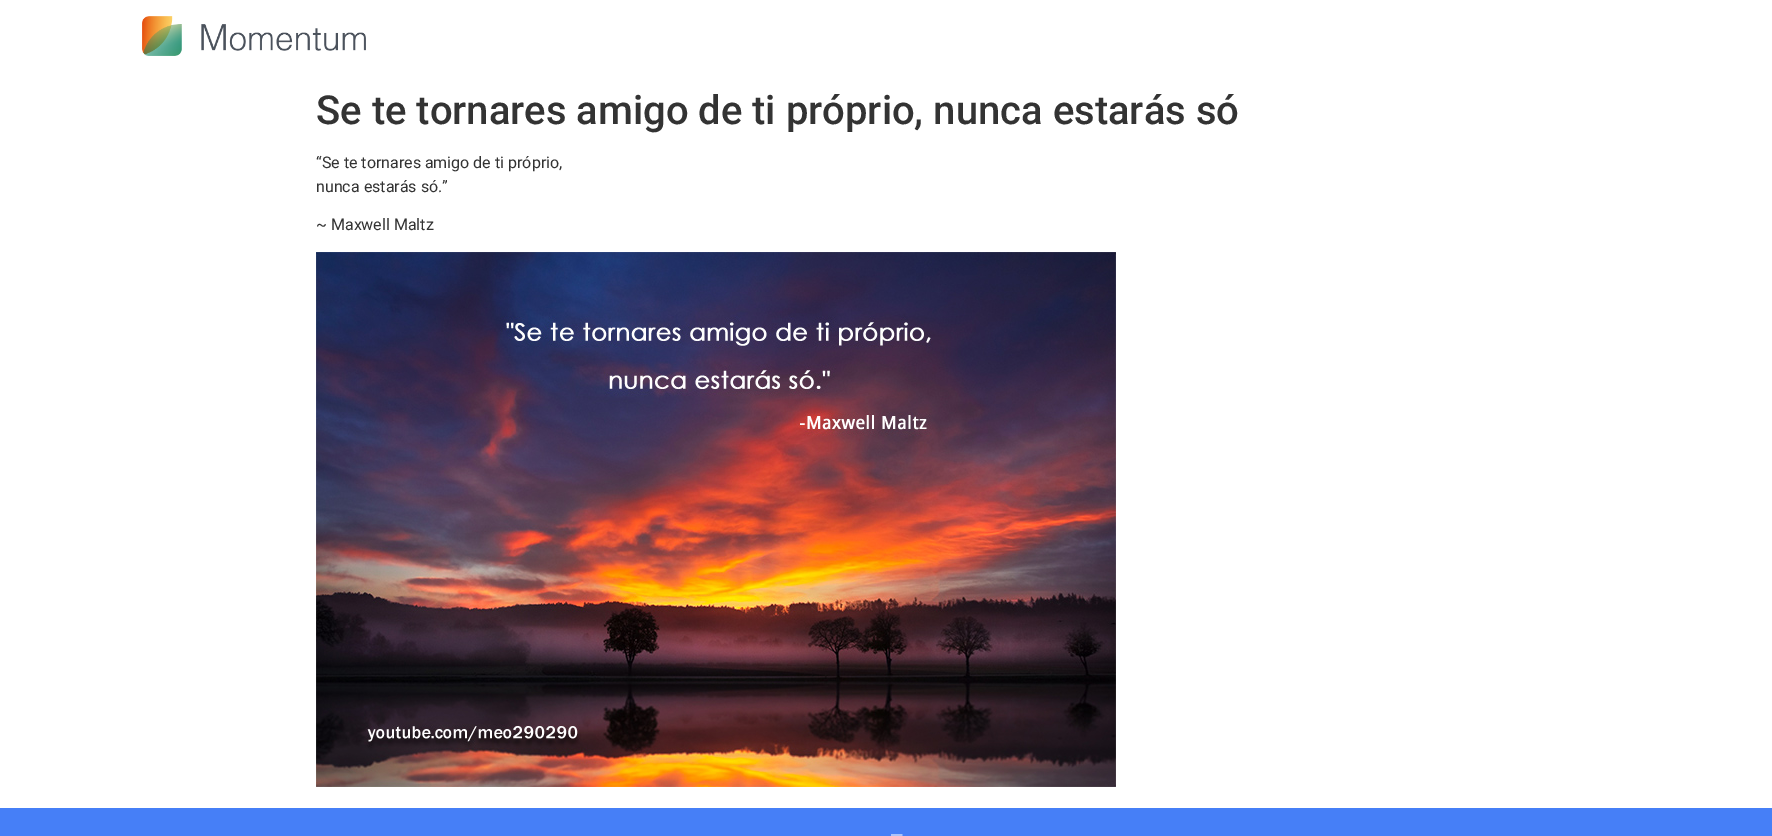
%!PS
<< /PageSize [1772 836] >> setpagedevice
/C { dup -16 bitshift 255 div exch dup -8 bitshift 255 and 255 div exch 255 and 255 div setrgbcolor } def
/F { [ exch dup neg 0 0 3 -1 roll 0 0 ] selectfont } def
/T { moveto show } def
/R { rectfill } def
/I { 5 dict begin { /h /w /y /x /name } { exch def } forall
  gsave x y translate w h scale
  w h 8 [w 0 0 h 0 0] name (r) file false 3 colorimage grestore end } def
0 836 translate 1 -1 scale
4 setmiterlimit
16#FFFFFF C
0 0 1772 836 R
(1.rgb) 142 16 224 40 I
/Roboto-Medium 40 F
16#333333 C
(Se te tornares amigo de ti próprio, nunca estarás só) 316 124 T
/Roboto-Regular 16 F
(“Se te tornares amigo de ti próprio,) 316 168 T
(nunca estarás só.”) 316 192 T
(~ Maxwell Maltz) 316 230 T
(2.rgb) 316 252 800 535 I
16#467FF7 C
0 808 1772 28 R
/Poppins-Light 16 F
16#FFFFFF C
(—) 890 841 T
showpage
